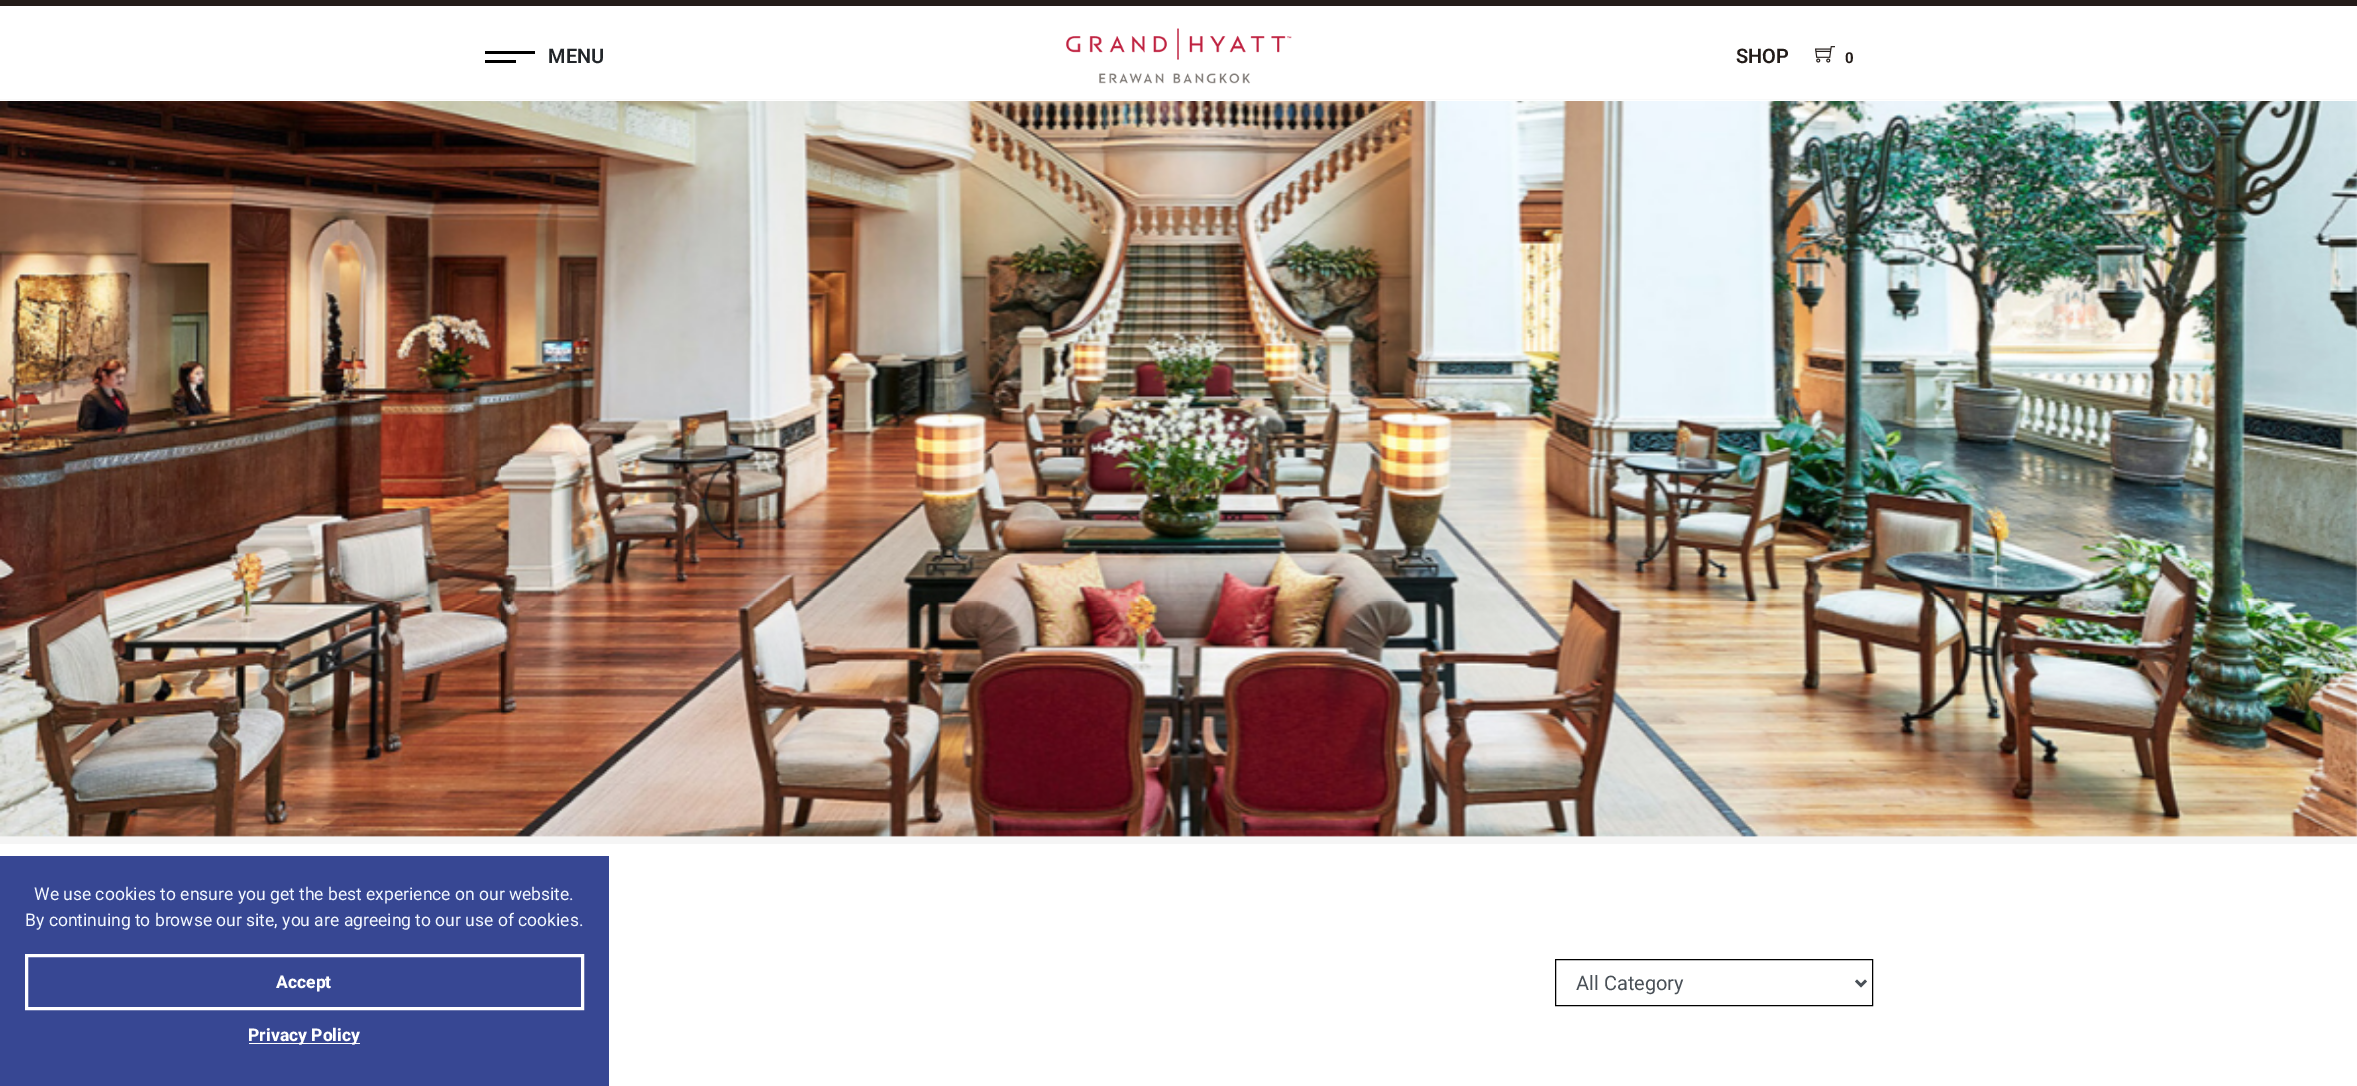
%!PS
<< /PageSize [2357 1086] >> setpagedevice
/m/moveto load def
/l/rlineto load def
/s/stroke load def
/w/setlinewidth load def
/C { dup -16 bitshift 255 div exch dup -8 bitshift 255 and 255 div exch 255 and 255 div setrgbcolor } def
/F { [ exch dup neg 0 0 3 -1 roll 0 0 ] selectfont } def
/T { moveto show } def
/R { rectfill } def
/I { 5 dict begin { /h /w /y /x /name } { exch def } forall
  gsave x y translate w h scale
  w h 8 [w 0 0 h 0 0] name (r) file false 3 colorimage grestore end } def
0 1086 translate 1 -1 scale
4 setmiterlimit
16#FFFFFF C
0 0 2357 1086 R
16#231C19 C
0 0 2357 6 R
16#F9F9F9 C
0 99 2357 1 R
16#000000 C
485 51 50 3 R
485 60 31 3 R
/Roboto-SemiBold 20 F
16#212529 C
(MENU) 548 63 T
(1.rgb) 1066 28 226 56 I
16#231C19 C
(SHOP) 1736 63 T
(2.rgb) 1815 46 20 17 I
/Roboto-Bold 15 F
(0) 1845 63 T
16#F5F5F5 C
0 101 2357 743 R
(3.rgb) 0 101 2357 736 I
16#374793 C
0 856 609 230 R
/Roboto-Regular 17.5 F
16#F3F8FF C
(We use cookies to ensure you get the best experience on our website.) 34 900 T
(By continuing to browse our site, you are agreeing to our use of cookies.) 25 926 T
16#FFFFFF C
3 w
26.5 955.5 556 53 rectstroke
/Roboto-ExtraBold 17.5 F
(Accept) 276 988 T
249 1043 111 1 R
(Privacy Policy) 248 1041 T
16#000000 C
1 w
1555.5 959.5 317 46 rectstroke
16#495057 C
2.5 w
1856 980.5 m 5 5 l 5 -5 l s
/Roboto-Regular 20 F
(All Category) 1576 990 T
showpage
